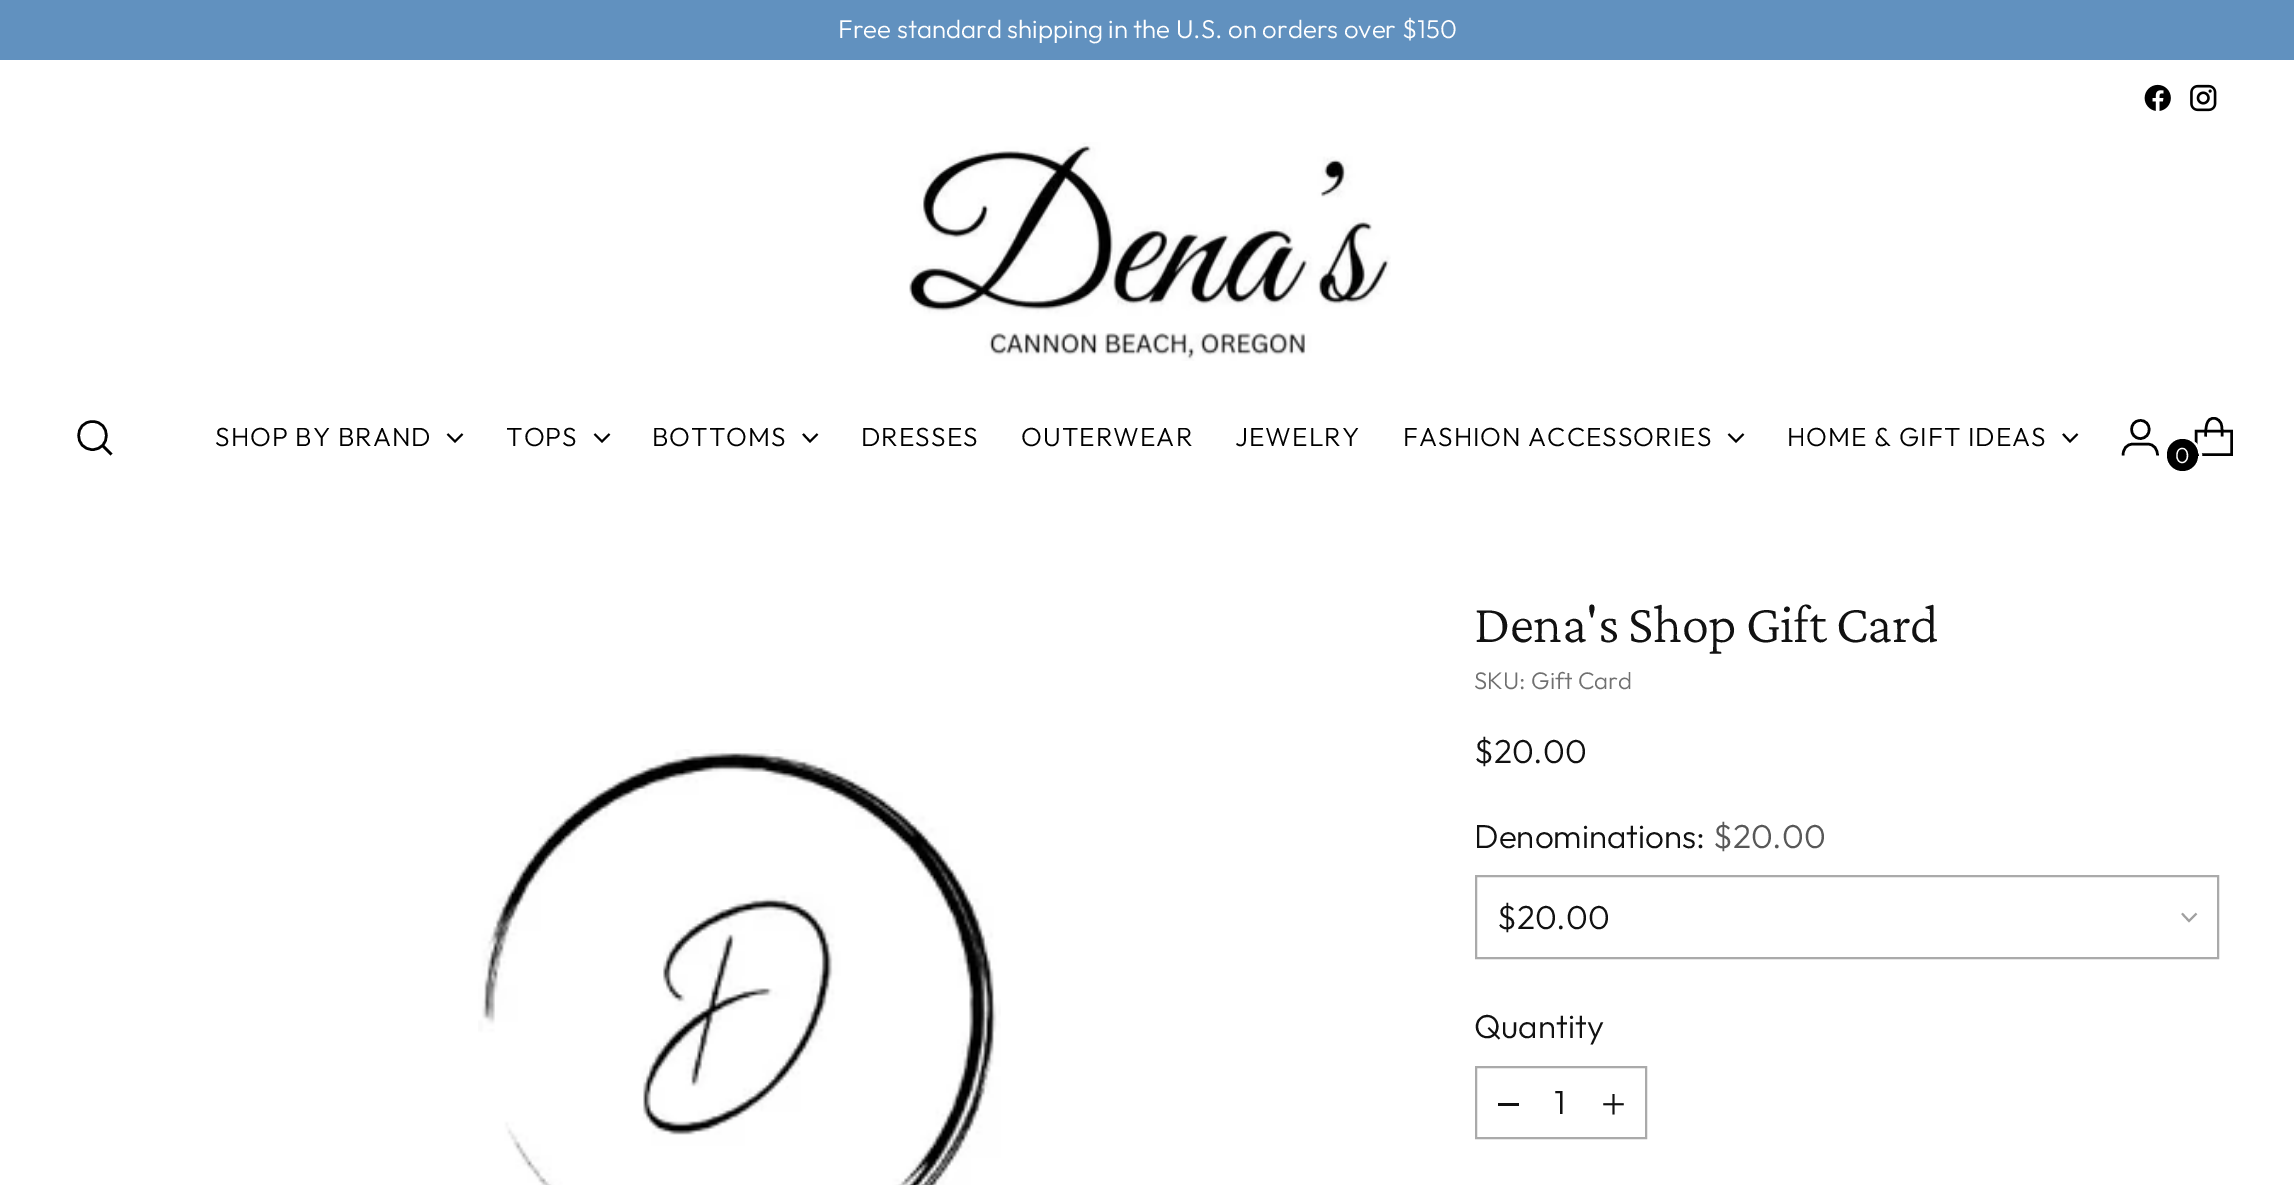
%!PS
<< /PageSize [2294 1185] >> setpagedevice
/m/moveto load def
/l/rlineto load def
/c/rcurveto load def
/z/closepath load def
/f/fill load def
/s/stroke load def
/w/setlinewidth load def
/C { dup -16 bitshift 255 div exch dup -8 bitshift 255 and 255 div exch 255 and 255 div setrgbcolor } def
/F { [ exch dup neg 0 0 3 -1 roll 0 0 ] selectfont } def
/T { moveto show } def
/R { rectfill } def
/Q { 5 dict begin { /r /h /w /y /x } { exch def } forall
  x r add y moveto x w add y 2 copy h add r arct x w add y h add x 1 index r arct
  x y h add x y r arct x y 2 copy exch w add exch r arct closepath end } def
/I { 5 dict begin { /h /w /y /x /name } { exch def } forall
  gsave x y translate w h scale
  w h 8 [w 0 0 h 0 0] name (r) file false 3 colorimage grestore end } def
0 1185 translate 1 -1 scale
4 setmiterlimit
16#FFFFFF C
0 0 2294 1185 R
16#6191BF C
0 0 2294 60 R
/Outfit-Light 25.8 F
16#FFFFFF C
(Free standard shipping in the U.S. on orders over $150) 838 38 T
(1.rgb) 2144 84 27 27 I
(2.rgb) 2190 84 27 28 I
(3.rgb) 909 142 482 219 I
16#000000 C
2.5 w
1 setlinecap
92.5 449.5 m 18.5 0 18.5 -28 0 -28 c -18.5 0 -18.5 28 0 28 c z s
0 setlinecap
102.5 445.5 m 9 9 l s
/Outfit-Light 26.25 F
215 446 m 1 0 (SHOP BY BRAND) ashow
2 w
447.5 434 m 7.5 7.5 l 7.5 -7.5 l s
506 446 m 1 0 (TOPS) ashow
594.5 434 m 7.5 7.5 l 7.5 -7.5 l s
652 446 m 1 0 (BOTTOMS) ashow
803 434 m 7 7.5 l 7.5 -7.5 l s
861 446 m 1 0 (DRESSES) ashow
1021 446 m 1 0 (OUTERWEAR) ashow
1235 446 m 1 0 (JEWELRY) ashow
1403 446 m 1 0 (FASHION ACCESSORIES) ashow
1728.5 434 m 7.5 7.5 l 7.5 -7.5 l s
1787 446 m 1 0 (HOME & GIFT IDEAS) ashow
2063 434 m 7 7.5 l 7.5 -7.5 l s
2.5 w
2140 438.5 m 12.5 0 12 -18.5 0 -18 c -11.5 .5 -11 17.5 0 18 c z 2123 455.5 m 0 -6 3 -11.5 10.5 -11.5 c 13.5 0 l 7.5 0 10.5 5.5 10.5 11.5 c s
2 setlinejoin
2222 436.5 m 0 -4.5 .5 -9 -1 -13 c -1 -2.5 -3 -4.5 -5.5 -5 c -10.5 -2 -9.5 11.5 -10 18 c s
0 setlinejoin
2231.5 454.5 m 0 -23.5 l -35.5 0 l 0 23.5 l z s
16#FFFFFF C
3 w
2166.5 439.5 34 33 16.5 Q s
16#000000 C
2167 439 31 32 15.5 Q f
/Outfit-Light 22 F
16#FFFFFF C
(0) 2175 463 T
(4.rgb) 478 749 523 436 I
/CrimsonPro-Light 55.1 F
16#111111 C
1474 642 m -.55 0 (Dena's Shop Gift Card) ashow
/Outfit-Light 24 F
16#707070 C
(SKU: Gift Card) 1474 689 T
/Outfit-Light 33.25 F
16#111111 C
($20.00) 1474 763 T
(Denominations:) 1474 848 T
16#585858 C
($20.00) 1713 848 T
16#AAAAAA C
2 w
1476 876 742 82 rectstroke
16#111111 C
($20.00) 1497 929 T
16#A0A0A0 C
2182 913.5 m 7 7.5 l 7.5 -7.5 l s
16#111111 C
(Quantity) 1474 1038 T
16#AAAAAA C
1476 1067 170 71 rectstroke
16#111111 C
1498 1103 21 3 R
(1) 1554 1114 T
(5.rgb) 1603 1094 21 21 I
showpage
